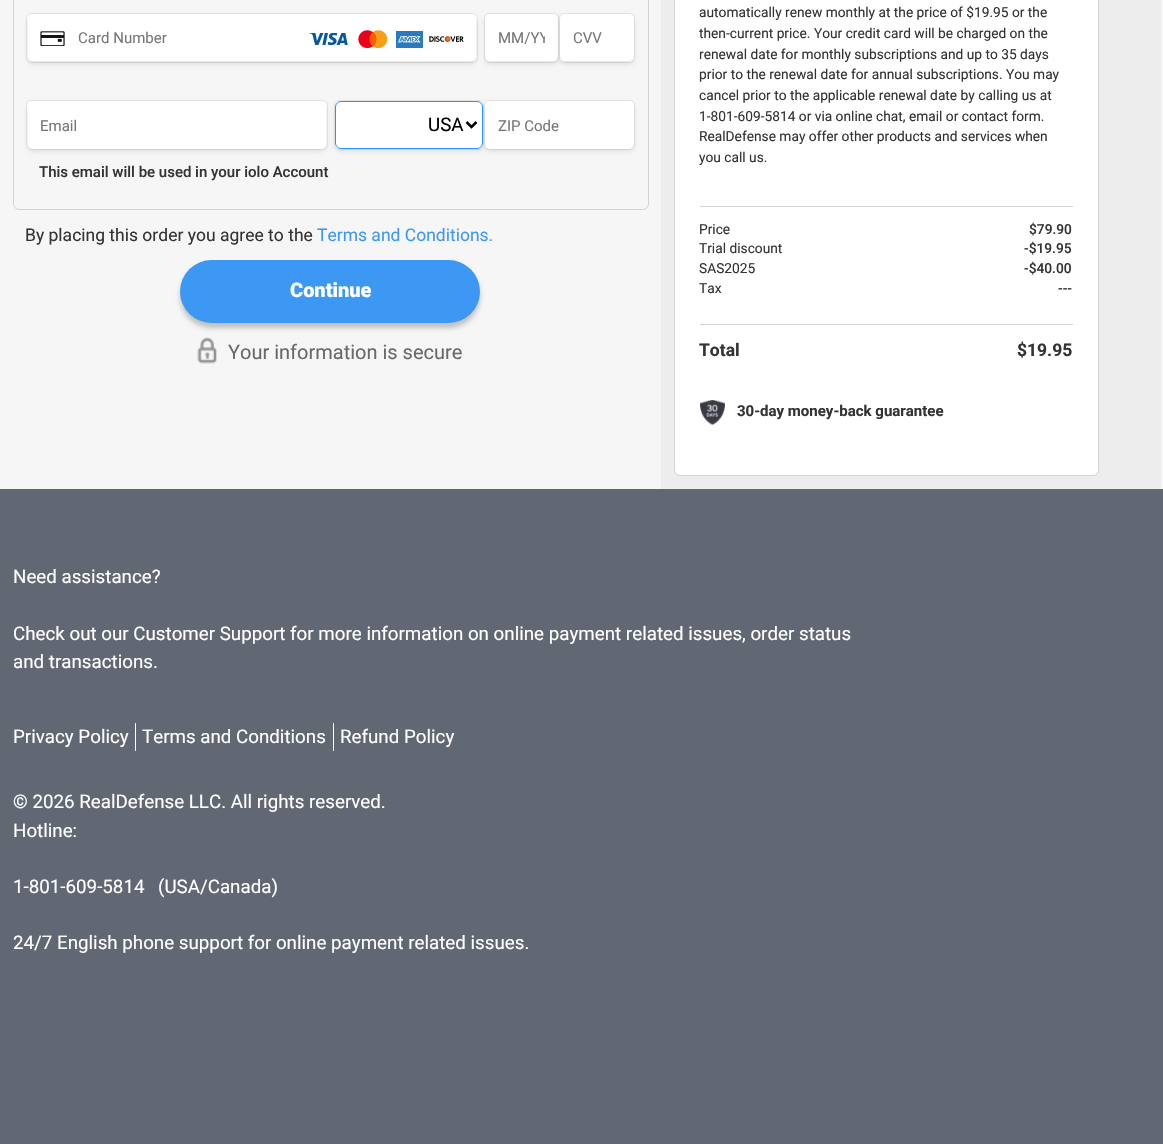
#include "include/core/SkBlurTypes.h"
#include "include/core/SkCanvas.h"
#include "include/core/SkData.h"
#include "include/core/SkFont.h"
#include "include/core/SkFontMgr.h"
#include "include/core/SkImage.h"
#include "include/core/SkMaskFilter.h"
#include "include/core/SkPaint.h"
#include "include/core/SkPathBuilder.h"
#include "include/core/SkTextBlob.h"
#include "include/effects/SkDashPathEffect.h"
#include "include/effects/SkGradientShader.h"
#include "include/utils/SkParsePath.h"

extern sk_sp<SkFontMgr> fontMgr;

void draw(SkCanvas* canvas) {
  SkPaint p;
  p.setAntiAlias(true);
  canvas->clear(SkColorSetRGB(98, 103, 116));
  p.setColor(SkColorSetRGB(246, 246, 246));
  canvas->drawRect(SkRect::MakeLTRB(0, 0, 1163, 489), p);
  p.setStyle(SkPaint::kStroke_Style);
  p.setStrokeWidth(1);
  p.setColor(SkColorSetRGB(211, 211, 211));
  canvas->drawPath(SkPathBuilder().moveTo(13.5f, -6.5f).lineTo(648.5f, -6.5f).lineTo(648.5f, 204).cubicTo(648.5f, 207, 646, 209.5f, 643, 209.5f).lineTo(19, 209.5f).cubicTo(16, 209.5f, 13.5f, 207, 13.5f, 204).close().detach(), p);
  p.setStyle(SkPaint::kFill_Style);
  p.setColor(SK_ColorWHITE);
  canvas->drawRoundRect(SkRect::MakeLTRB(484.5f, 13.5f, 558.5f, 62.5f), 4.5f, 4.5f, p);
  p.setStyle(SkPaint::kStroke_Style);
  p.setColor(SkColorSetRGB(229, 229, 229));
  canvas->drawRoundRect(SkRect::MakeLTRB(484.5f, 13.5f, 558.5f, 62.5f), 4.5f, 4.5f, p);
  canvas->save();
  canvas->clipPath(SkPathBuilder(SkPathFillType::kEvenOdd).moveTo(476, 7).lineTo(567, 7).lineTo(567, 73).lineTo(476, 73).close().moveTo(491, 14).lineTo(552, 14).cubicTo(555.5f, 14, 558, 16.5f, 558, 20).lineTo(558, 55).cubicTo(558, 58.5f, 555.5f, 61, 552, 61).lineTo(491, 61).cubicTo(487.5f, 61, 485, 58.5f, 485, 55).lineTo(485, 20).cubicTo(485, 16.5f, 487.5f, 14, 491, 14).close().detach(), true);
  p.setStyle(SkPaint::kFill_Style);
  p.setColor(SkColorSetARGB(28, 0, 0, 0));
  p.setMaskFilter(SkMaskFilter::MakeBlur(kNormal_SkBlurStyle, 2.5f));
  canvas->drawRoundRect(SkRect::MakeLTRB(485, 16, 558, 64), 6, 6, p);
  p.setMaskFilter(nullptr);
  canvas->restore();
  p.setColor(SK_ColorWHITE);
  canvas->drawRoundRect(SkRect::MakeLTRB(26.5f, 13.5f, 477.5f, 62.5f), 4.5f, 4.5f, p);
  p.setStyle(SkPaint::kStroke_Style);
  p.setColor(SkColorSetRGB(229, 229, 229));
  canvas->drawRoundRect(SkRect::MakeLTRB(26.5f, 13.5f, 477.5f, 62.5f), 4.5f, 4.5f, p);
  canvas->save();
  canvas->clipPath(SkPathBuilder(SkPathFillType::kEvenOdd).moveTo(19, 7).lineTo(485, 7).lineTo(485, 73).lineTo(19, 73).close().moveTo(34, 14).lineTo(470, 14).cubicTo(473.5f, 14, 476, 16.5f, 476, 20).lineTo(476, 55).cubicTo(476, 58.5f, 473.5f, 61, 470, 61).lineTo(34, 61).cubicTo(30.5f, 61, 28, 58.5f, 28, 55).lineTo(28, 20).cubicTo(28, 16.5f, 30.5f, 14, 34, 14).close().detach(), true);
  p.setStyle(SkPaint::kFill_Style);
  p.setColor(SkColorSetARGB(28, 0, 0, 0));
  p.setMaskFilter(SkMaskFilter::MakeBlur(kNormal_SkBlurStyle, 2.5f));
  canvas->drawRoundRect(SkRect::MakeLTRB(28, 16, 476, 64), 6, 6, p);
  p.setMaskFilter(nullptr);
  canvas->restore();
  canvas->drawImageRect(SkImages::DeferredFromEncodedData(SkData::MakeFromFileName("images/1.png")), SkRect::MakeLTRB(40, 31, 65, 46), SkSamplingOptions());
  canvas->drawImageRect(SkImages::DeferredFromEncodedData(SkData::MakeFromFileName("images/2.png")), SkRect::MakeLTRB(309, 33, 348, 46), SkSamplingOptions());
  canvas->drawImageRect(SkImages::DeferredFromEncodedData(SkData::MakeFromFileName("images/3.png")), SkRect::MakeLTRB(358, 30, 388, 49), SkSamplingOptions());
  canvas->drawImageRect(SkImages::DeferredFromEncodedData(SkData::MakeFromFileName("images/4.png")), SkRect::MakeLTRB(396, 31, 423, 48), SkSamplingOptions());
  canvas->drawImageRect(SkImages::DeferredFromEncodedData(SkData::MakeFromFileName("images/5.png")), SkRect::MakeLTRB(429, 36, 464, 42), SkSamplingOptions());
  p.setColor(SK_ColorWHITE);
  canvas->drawRoundRect(SkRect::MakeLTRB(559.5f, 13.5f, 634.5f, 62.5f), 4.5f, 4.5f, p);
  p.setStyle(SkPaint::kStroke_Style);
  p.setColor(SkColorSetRGB(229, 229, 229));
  canvas->drawRoundRect(SkRect::MakeLTRB(559.5f, 13.5f, 634.5f, 62.5f), 4.5f, 4.5f, p);
  canvas->save();
  canvas->clipPath(SkPathBuilder(SkPathFillType::kEvenOdd).moveTo(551, 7).lineTo(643, 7).lineTo(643, 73).lineTo(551, 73).close().moveTo(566, 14).lineTo(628, 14).cubicTo(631.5f, 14, 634, 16.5f, 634, 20).lineTo(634, 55).cubicTo(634, 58.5f, 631.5f, 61, 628, 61).lineTo(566, 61).cubicTo(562.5f, 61, 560, 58.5f, 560, 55).lineTo(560, 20).cubicTo(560, 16.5f, 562.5f, 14, 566, 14).close().detach(), true);
  p.setStyle(SkPaint::kFill_Style);
  p.setColor(SkColorSetARGB(28, 0, 0, 0));
  p.setMaskFilter(SkMaskFilter::MakeBlur(kNormal_SkBlurStyle, 2.5f));
  canvas->drawRoundRect(SkRect::MakeLTRB(560, 16, 634, 64), 6, 6, p);
  p.setMaskFilter(nullptr);
  canvas->restore();
  p.setColor(SK_ColorWHITE);
  canvas->drawRoundRect(SkRect::MakeLTRB(26.5f, 100.5f, 327.5f, 149.5f), 4.5f, 4.5f, p);
  p.setStyle(SkPaint::kStroke_Style);
  p.setColor(SkColorSetRGB(229, 229, 229));
  canvas->drawRoundRect(SkRect::MakeLTRB(26.5f, 100.5f, 327.5f, 149.5f), 4.5f, 4.5f, p);
  canvas->save();
  canvas->clipPath(SkPathBuilder(SkPathFillType::kEvenOdd).moveTo(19, 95).lineTo(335, 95).lineTo(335, 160).lineTo(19, 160).close().moveTo(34, 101).lineTo(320, 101).cubicTo(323.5f, 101, 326, 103.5f, 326, 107).lineTo(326, 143).cubicTo(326, 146.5f, 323.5f, 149, 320, 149).lineTo(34, 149).cubicTo(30.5f, 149, 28, 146.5f, 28, 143).lineTo(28, 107).cubicTo(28, 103.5f, 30.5f, 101, 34, 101).close().detach(), true);
  p.setStyle(SkPaint::kFill_Style);
  p.setColor(SkColorSetARGB(28, 0, 0, 0));
  p.setMaskFilter(SkMaskFilter::MakeBlur(kNormal_SkBlurStyle, 2.5f));
  canvas->drawRoundRect(SkRect::MakeLTRB(28, 104, 326, 151), 6, 6, p);
  p.setMaskFilter(nullptr);
  canvas->restore();
  p.setColor(SK_ColorWHITE);
  canvas->drawRoundRect(SkRect::MakeLTRB(334.5f, 100.5f, 483.5f, 149.5f), 4.5f, 4.5f, p);
  p.setStyle(SkPaint::kStroke_Style);
  p.setColor(SkColorSetRGB(229, 229, 229));
  canvas->drawRoundRect(SkRect::MakeLTRB(334.5f, 100.5f, 483.5f, 149.5f), 4.5f, 4.5f, p);
  canvas->save();
  canvas->clipPath(SkPathBuilder(SkPathFillType::kEvenOdd).moveTo(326, 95).lineTo(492, 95).lineTo(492, 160).lineTo(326, 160).close().moveTo(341, 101).lineTo(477, 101).cubicTo(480.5f, 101, 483, 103.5f, 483, 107).lineTo(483, 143).cubicTo(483, 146.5f, 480.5f, 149, 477, 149).lineTo(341, 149).cubicTo(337.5f, 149, 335, 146.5f, 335, 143).lineTo(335, 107).cubicTo(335, 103.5f, 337.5f, 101, 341, 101).close().detach(), true);
  p.setStyle(SkPaint::kFill_Style);
  p.setColor(SkColorSetARGB(28, 0, 0, 0));
  p.setMaskFilter(SkMaskFilter::MakeBlur(kNormal_SkBlurStyle, 2.5f));
  canvas->drawRoundRect(SkRect::MakeLTRB(335, 104, 483, 151), 6, 6, p);
  p.setMaskFilter(nullptr);
  canvas->restore();
  p.setStyle(SkPaint::kStroke_Style);
  p.setColor(SkColorSetRGB(38, 150, 253));
  canvas->drawRoundRect(SkRect::MakeLTRB(335.5f, 101.5f, 482.5f, 148.5f), 5.5f, 5.5f, p);
  p.setStrokeWidth(2.5f);
  p.setColor(SK_ColorBLACK);
  canvas->drawPath(SkPathBuilder().moveTo(466.5f, 122).lineTo(471.5f, 127).lineTo(476.5f, 122).detach(), p);
  p.setStyle(SkPaint::kFill_Style);
  p.setColor(SK_ColorWHITE);
  canvas->drawRoundRect(SkRect::MakeLTRB(484.5f, 100.5f, 634.5f, 149.5f), 4.5f, 4.5f, p);
  p.setStyle(SkPaint::kStroke_Style);
  p.setStrokeWidth(1);
  p.setColor(SkColorSetRGB(229, 229, 229));
  canvas->drawRoundRect(SkRect::MakeLTRB(484.5f, 100.5f, 634.5f, 149.5f), 4.5f, 4.5f, p);
  canvas->save();
  canvas->clipPath(SkPathBuilder(SkPathFillType::kEvenOdd).moveTo(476, 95).lineTo(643, 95).lineTo(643, 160).lineTo(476, 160).close().moveTo(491, 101).lineTo(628, 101).cubicTo(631.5f, 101, 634, 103.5f, 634, 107).lineTo(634, 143).cubicTo(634, 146.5f, 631.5f, 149, 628, 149).lineTo(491, 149).cubicTo(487.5f, 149, 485, 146.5f, 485, 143).lineTo(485, 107).cubicTo(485, 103.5f, 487.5f, 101, 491, 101).close().detach(), true);
  p.setStyle(SkPaint::kFill_Style);
  p.setColor(SkColorSetARGB(28, 0, 0, 0));
  p.setMaskFilter(SkMaskFilter::MakeBlur(kNormal_SkBlurStyle, 2.5f));
  canvas->drawRoundRect(SkRect::MakeLTRB(485, 104, 634, 151), 6, 6, p);
  p.setMaskFilter(nullptr);
  canvas->restore();
  p.setColor(SkColorSetARGB(56, 0, 0, 0));
  p.setMaskFilter(SkMaskFilter::MakeBlur(kNormal_SkBlurStyle, 2.5f));
  canvas->drawRoundRect(SkRect::MakeLTRB(180, 265, 480, 328), 31.5f, 31.5f, p);
  p.setMaskFilter(nullptr);
  p.setColor(SkColorSetRGB(60, 152, 243));
  canvas->drawRoundRect(SkRect::MakeLTRB(180, 260, 480, 323), 31.5f, 31.5f, p);
  canvas->drawImageRect(SkImages::DeferredFromEncodedData(SkData::MakeFromFileName("images/6.png")), SkRect::MakeLTRB(197, 337, 217, 364), SkSamplingOptions());
  p.setColor(SkColorSetRGB(237, 237, 237));
  canvas->drawRect(SkRect::MakeLTRB(661, 0, 1161, 489), p);
  p.setColor(SK_ColorWHITE);
  canvas->drawRoundRect(SkRect::MakeLTRB(674.5f, -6.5f, 1098.5f, 475.5f), 5.5f, 5.5f, p);
  p.setStyle(SkPaint::kStroke_Style);
  p.setColor(SkColorSetRGB(211, 211, 211));
  canvas->drawRoundRect(SkRect::MakeLTRB(674.5f, -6.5f, 1098.5f, 475.5f), 5.5f, 5.5f, p);
  p.setStyle(SkPaint::kFill_Style);
  canvas->drawRect(SkRect::MakeLTRB(700, 206, 1073, 207), p);
  canvas->drawRect(SkRect::MakeLTRB(700, 324, 1073, 325), p);
  canvas->drawImageRect(SkImages::DeferredFromEncodedData(SkData::MakeFromFileName("images/7.png")), SkRect::MakeLTRB(700, 400, 725, 425), SkSamplingOptions());
  p.setColor(SK_ColorWHITE);
  canvas->drawRect(SkRect::MakeLTRB(135, 723, 136, 751), p);
  canvas->drawRect(SkRect::MakeLTRB(333, 723, 334, 751), p);
  SkFont font1(fontMgr->matchFamilyStyle("Roboto", SkFontStyle::Normal()), 15);
  font1.setSubpixel(true);
  p.setColor(SkColorSetRGB(119, 119, 119));
  canvas->drawString("Card Number", 78, 43, font1, p);
  canvas->save();
  canvas->clipRect(SkRect::MakeLTRB(498, 30, 545, 48));
  canvas->drawString("MM/YY", 498, 43, font1, p);
  canvas->restore();
  canvas->drawString("CVV", 573, 43, font1, p);
  canvas->drawString("Email", 40, 131, font1, p);
  SkFont font2(fontMgr->matchFamilyStyle("Roboto", SkFontStyle::Normal()), 18.75f);
  font2.setSubpixel(true);
  p.setColor(SK_ColorBLACK);
  canvas->drawString("USA", 428, 131, font2, p);
  p.setColor(SkColorSetRGB(119, 119, 119));
  canvas->drawString("ZIP Code", 498, 131, font1, p);
  SkFont font3(fontMgr->matchFamilyStyle("Roboto", SkFontStyle(500, SkFontStyle::kNormal_Width, SkFontStyle::kUpright_Slant)), 15);
  font3.setSubpixel(true);
  p.setColor(SkColorSetRGB(51, 51, 51));
  canvas->drawString("This email will be used in your iolo Account", 39, 177, font3, p);
  SkFont font4(fontMgr->matchFamilyStyle("Roboto", SkFontStyle::Normal()), 17.5f);
  font4.setSubpixel(true);
  canvas->drawString("By placing this order you agree to the", 25, 241, font4, p);
  p.setColor(SkColorSetRGB(60, 152, 243));
  canvas->drawString("Terms and Conditions.", 317, 241, font4, p);
  SkFont font5(fontMgr->matchFamilyStyle("Roboto", SkFontStyle(900, SkFontStyle::kNormal_Width, SkFontStyle::kUpright_Slant)), 20);
  font5.setSubpixel(true);
  p.setColor(SK_ColorWHITE);
  canvas->drawString("Continue", 290, 297, font5, p);
  SkFont font6(fontMgr->matchFamilyStyle("Roboto", SkFontStyle::Normal()), 20);
  font6.setSubpixel(true);
  p.setColor(SkColorSetRGB(105, 105, 105));
  canvas->drawString("Your information is secure", 228, 359, font6, p);
  SkFont font7(fontMgr->matchFamilyStyle("Roboto", SkFontStyle::Normal()), 13.75f);
  font7.setSubpixel(true);
  p.setColor(SkColorSetRGB(51, 51, 51));
  canvas->drawString("automatically renew monthly at the price of $19.95 or the", 699, 17, font7, p);
  canvas->drawString("then-current price. Your credit card will be charged on the", 699, 38, font7, p);
  canvas->drawString("renewal date for monthly subscriptions and up to 35 days", 699, 59, font7, p);
  canvas->drawString("prior to the renewal date for annual subscriptions. You may", 699, 79, font7, p);
  canvas->drawString("cancel prior to the applicable renewal date by calling us at", 699, 100, font7, p);
  canvas->drawString("1-801-609-5814 or via online chat, email or contact form.", 699, 121, font7, p);
  canvas->drawString("RealDefense may offer other products and services when", 699, 141, font7, p);
  canvas->drawString("you call us.", 699, 162, font7, p);
  canvas->drawString("Price", 699, 234, font7, p);
  SkFont font8(fontMgr->matchFamilyStyle("Roboto", SkFontStyle(500, SkFontStyle::kNormal_Width, SkFontStyle::kUpright_Slant)), 13.75f);
  font8.setSubpixel(true);
  canvas->drawString("$79.90", 1029, 234, font8, p);
  canvas->drawString("Trial discount", 699, 253, font7, p);
  canvas->drawString("-$19.95", 1024, 253, font8, p);
  canvas->drawString("SAS2025", 699, 273, font7, p);
  canvas->drawString("-$40.00", 1024, 273, font8, p);
  canvas->drawString("Tax", 699, 293, font7, p);
  canvas->drawString("---", 1058, 293, font8, p);
  SkFont font9(fontMgr->matchFamilyStyle("Roboto", SkFontStyle::Bold()), 17.5f);
  font9.setSubpixel(true);
  canvas->drawString("Total", 699, 356, font9, p);
  canvas->drawString("$19.95", 1017, 356, font9, p);
  SkFont font10(fontMgr->matchFamilyStyle("Roboto", SkFontStyle::Bold()), 15);
  font10.setSubpixel(true);
  canvas->drawString("30-day money-back guarantee", 737, 416, font10, p);
  p.setColor(SK_ColorWHITE);
  canvas->drawString("Need assistance?", 13, 583, font2, p);
  canvas->drawString("Check out our Customer Support for more information on online payment related issues, order status", 13, 640, font2, p);
  canvas->drawString("and transactions.", 13, 668, font2, p);
  canvas->drawString("Privacy Policy", 13, 743, font2, p);
  canvas->drawString("Terms and Conditions", 142, 743, font2, p);
  canvas->drawString("Refund Policy", 340, 743, font2, p);
  canvas->drawString("© 2026 RealDefense LLC. All rights reserved.", 13, 808, font2, p);
  canvas->drawString("Hotline:", 13, 837, font2, p);
  canvas->drawString("1-801-609-5814", 13, 893, font2, p);
  canvas->drawString("(USA/Canada)", 158, 893, font2, p);
  canvas->drawString("24/7 English phone support for online payment related issues.", 13, 949, font2, p);
}
